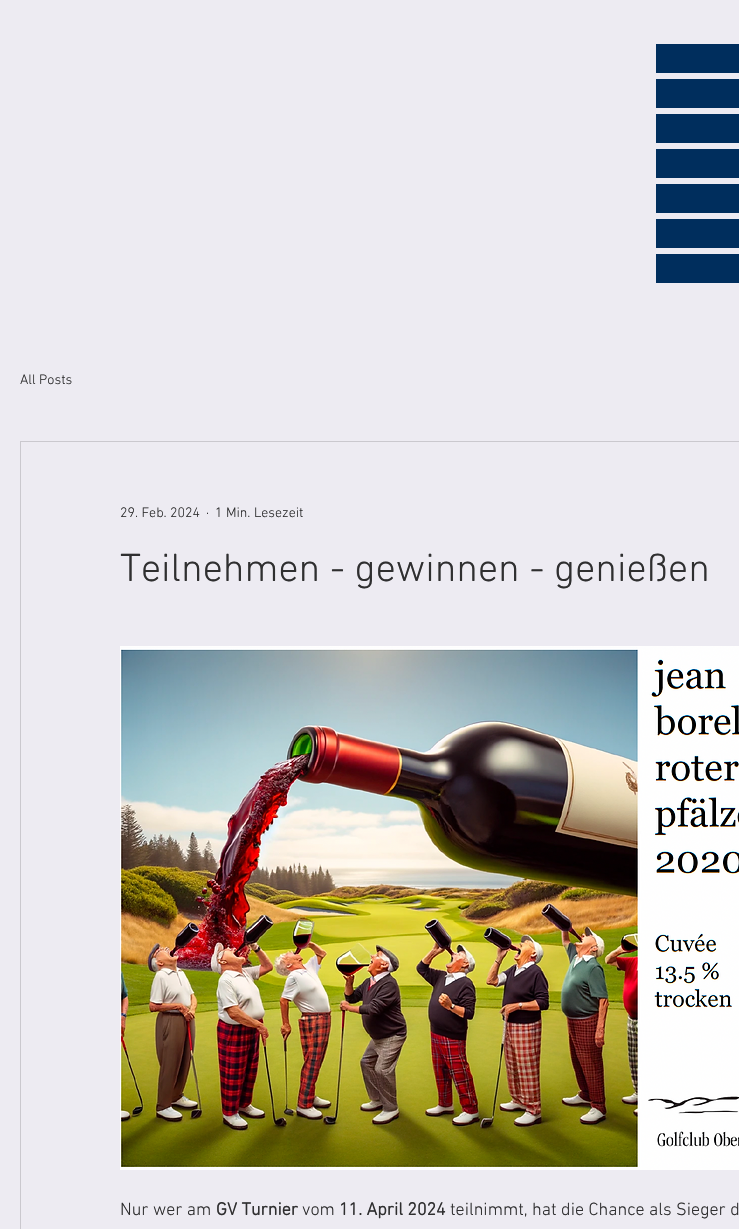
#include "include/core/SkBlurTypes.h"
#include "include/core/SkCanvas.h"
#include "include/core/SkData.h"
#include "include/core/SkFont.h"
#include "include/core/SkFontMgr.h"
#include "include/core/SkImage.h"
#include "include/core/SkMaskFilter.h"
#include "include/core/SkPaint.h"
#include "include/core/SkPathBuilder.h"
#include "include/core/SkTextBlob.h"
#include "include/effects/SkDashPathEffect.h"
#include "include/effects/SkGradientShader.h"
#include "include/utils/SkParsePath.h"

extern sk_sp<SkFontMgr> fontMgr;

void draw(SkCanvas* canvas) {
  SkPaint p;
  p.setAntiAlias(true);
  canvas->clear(SkColorSetRGB(237, 235, 242));
  p.setColor(SkColorSetRGB(0, 46, 93));
  canvas->drawRect(SkRect::MakeLTRB(656, 44, 739, 73), p);
  canvas->drawRect(SkRect::MakeLTRB(656, 79, 739, 108), p);
  canvas->drawRect(SkRect::MakeLTRB(656, 114, 739, 143), p);
  canvas->drawRect(SkRect::MakeLTRB(656, 149, 739, 178), p);
  canvas->drawRect(SkRect::MakeLTRB(656, 184, 739, 213), p);
  canvas->drawRect(SkRect::MakeLTRB(656, 219, 739, 248), p);
  canvas->drawRect(SkRect::MakeLTRB(656, 254, 739, 283), p);
  p.setStyle(SkPaint::kStroke_Style);
  p.setStrokeWidth(1);
  p.setColor(SkColorSetRGB(202, 200, 206));
  canvas->drawRect(SkRect::MakeLTRB(20.5f, 441.5f, 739.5f, 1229.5f), p);
  canvas->drawImageRect(SkImages::DeferredFromEncodedData(SkData::MakeFromFileName("images/1.png")), SkRect::MakeLTRB(120, 646, 739, 1170), SkSamplingOptions());
  SkFont font1(fontMgr->matchFamilyStyle("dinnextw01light", SkFontStyle(300, SkFontStyle::kNormal_Width, SkFontStyle::kUpright_Slant)), 14);
  font1.setSubpixel(true);
  p.setStyle(SkPaint::kFill_Style);
  p.setColor(SkColorSetRGB(47, 47, 48));
  canvas->drawString("All Posts", 20, 384, font1, p);
  canvas->drawString("29. Feb. 2024", 120, 517, font1, p);
  canvas->drawString("·", 206, 517, font1, p);
  canvas->drawString("1 Min. Lesezeit", 215, 517, font1, p);
  SkFont font2(fontMgr->matchFamilyStyle("dinnextw01light", SkFontStyle(300, SkFontStyle::kNormal_Width, SkFontStyle::kUpright_Slant)), 40);
  font2.setSubpixel(true);
  canvas->drawString("Teilnehmen - gewinnen - genießen", 120, 581, font2, p);
  SkFont font3(fontMgr->matchFamilyStyle("dinnextw01light", SkFontStyle(300, SkFontStyle::kNormal_Width, SkFontStyle::kUpright_Slant)), 18);
  font3.setSubpixel(true);
  canvas->drawString("Nur wer am", 120, 1215, font3, p);
  SkFont font4(fontMgr->matchFamilyStyle("dinnextw01light", SkFontStyle::Bold()), 18);
  font4.setSubpixel(true);
  canvas->drawString("GV Turnier", 216, 1215, font4, p);
  canvas->drawString("vom", 302, 1215, font3, p);
  canvas->drawString("11. April 2024", 339, 1215, font4, p);
  canvas->drawString("teilnimmt, hat die Chance als Sieger d", 450, 1215, font3, p);
}
